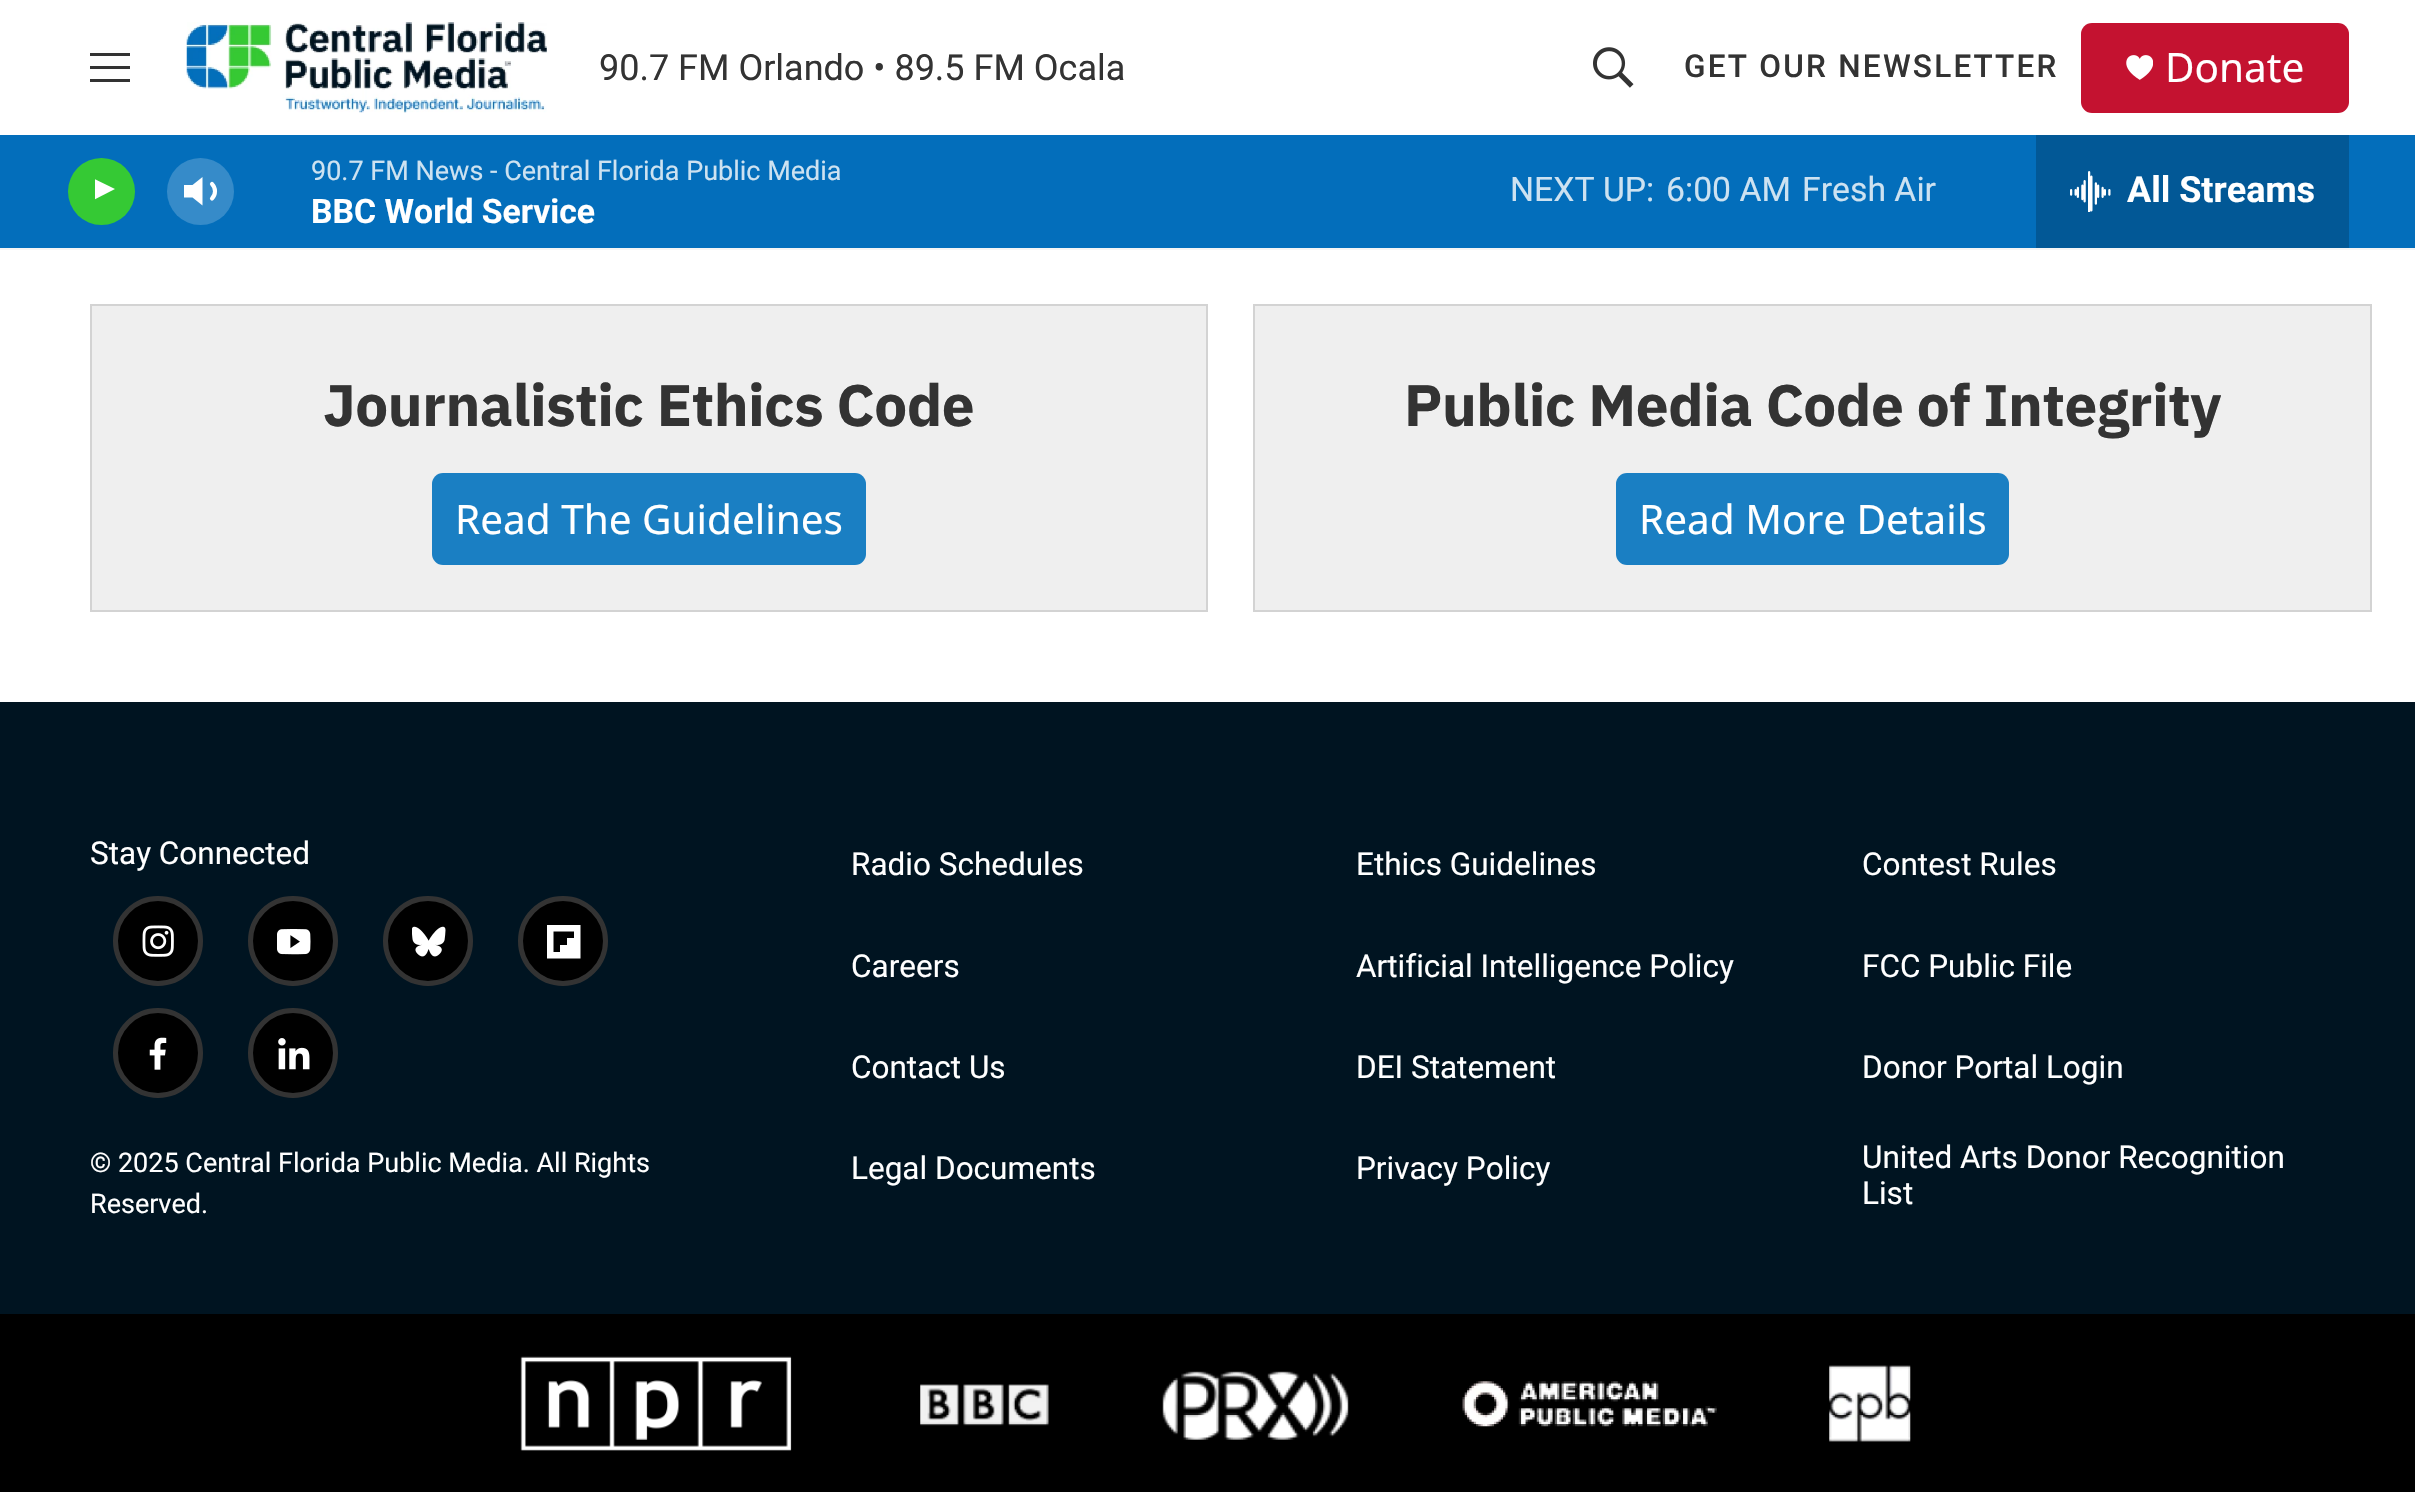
#include "include/core/SkBlurTypes.h"
#include "include/core/SkCanvas.h"
#include "include/core/SkData.h"
#include "include/core/SkFont.h"
#include "include/core/SkFontMgr.h"
#include "include/core/SkImage.h"
#include "include/core/SkMaskFilter.h"
#include "include/core/SkPaint.h"
#include "include/core/SkPathBuilder.h"
#include "include/core/SkTextBlob.h"
#include "include/effects/SkDashPathEffect.h"
#include "include/effects/SkGradientShader.h"
#include "include/utils/SkParsePath.h"

extern sk_sp<SkFontMgr> fontMgr;

void draw(SkCanvas* canvas) {
  SkPaint p;
  p.setAntiAlias(true);
  auto spacedText = [&](const char* s, float x, float y, const SkFont& font, const SkPaint& ink, float letter, float word) {
    std::vector<SkGlyphID> glyphs(font.countText(s, strlen(s), SkTextEncoding::kUTF8));
    std::vector<float> xs(glyphs.size());
    font.textToGlyphs(s, strlen(s), SkTextEncoding::kUTF8, glyphs);
    font.getXPos(glyphs, xs, x);
    float extra = 0;
    for (size_t i = 0; i < glyphs.size(); i++) {
      xs[i] += extra;
      extra += letter + word * (glyphs[i] == font.unicharToGlyph(' '));
    }
    canvas->drawTextBlob(SkTextBlob::MakeFromPosHGlyphs(glyphs, xs, y, font), 0, 0, ink);
  };
  canvas->clear(SK_ColorWHITE);
  p.setColor(SkColorSetRGB(245, 245, 245));
  canvas->drawRect(SkRect::MakeLTRB(0, 248, 2415, 250), p);
  p.setColor(SkColorSetRGB(51, 51, 51));
  canvas->drawPath(SkPathBuilder(SkPathFillType::kEvenOdd).moveTo(90, 69).lineTo(90, 66).lineTo(130, 66).lineTo(130, 69).close().moveTo(90, 56).lineTo(90, 53).lineTo(130, 53).lineTo(130, 56).close().moveTo(90, 82).lineTo(90, 79).lineTo(130, 79).lineTo(130, 82).close().detach(), p);
  canvas->drawImageRect(SkImages::DeferredFromEncodedData(SkData::MakeFromFileName("images/1.png")), SkRect::MakeLTRB(186, 22, 547, 113), SkSamplingOptions());
  canvas->drawImageRect(SkImages::DeferredFromEncodedData(SkData::MakeFromFileName("images/2.png")), SkRect::MakeLTRB(1593, 47, 1634, 88), SkSamplingOptions());
  p.setColor(SkColorSetRGB(196, 18, 48));
  canvas->drawRoundRect(SkRect::MakeLTRB(2081, 23, 2349, 113), 11, 11, p);
  canvas->drawImageRect(SkImages::DeferredFromEncodedData(SkData::MakeFromFileName("images/3.png")), SkRect::MakeLTRB(2126, 55, 2153, 80), SkSamplingOptions());
  p.setColor(SkColorSetRGB(3, 110, 187));
  canvas->drawRect(SkRect::MakeLTRB(0, 135, 2415, 248), p);
  p.setColor(SkColorSetRGB(53, 201, 52));
  canvas->drawCircle(101.5f, 191.5f, 33.5f, p);
  canvas->save();
  canvas->clipRect(SkRect::MakeLTRB(95, 176, 120, 209));
  p.setColor(SK_ColorWHITE);
  canvas->drawPath(SkPathBuilder().moveTo(93.5f, 178.5f).lineTo(115, 189).lineTo(93.5f, 200).close().detach(), p);
  canvas->restore();
  canvas->drawPath(SkPathBuilder().moveTo(202.5f, 177).lineTo(192.5f, 185).lineTo(184, 185).lineTo(184, 197.5f).lineTo(192.5f, 197.5f).lineTo(202.5f, 205.5f).close().detach(), p);
  p.setStyle(SkPaint::kStroke_Style);
  p.setStrokeWidth(4.1f);
  p.setStrokeCap(SkPaint::kRound_Cap);
  p.setStrokeJoin(SkPaint::kRound_Join);
  canvas->drawPath(SkPathBuilder().moveTo(212, 184).cubicTo(216, 188, 216, 194.5f, 212, 198.5f).detach(), p);
  p.setStyle(SkPaint::kFill_Style);
  p.setColor(SkColorSetARGB(51, 255, 255, 255));
  canvas->drawCircle(200.5f, 191.5f, 33.5f, p);
  p.setColor(SkColorSetRGB(2, 88, 150));
  canvas->drawRect(SkRect::MakeLTRB(2036, 135, 2349, 248), p);
  canvas->drawImageRect(SkImages::DeferredFromEncodedData(SkData::MakeFromFileName("images/4.png")), SkRect::MakeLTRB(2070, 171, 2111, 212), SkSamplingOptions());
  p.setColor(SkColorSetRGB(239, 239, 239));
  canvas->drawRect(SkRect::MakeLTRB(91, 305, 1207, 611), p);
  p.setStyle(SkPaint::kStroke_Style);
  p.setStrokeWidth(2);
  p.setStrokeCap(SkPaint::kButt_Cap);
  p.setStrokeJoin(SkPaint::kMiter_Join);
  p.setColor(SkColorSetRGB(211, 211, 211));
  canvas->drawRect(SkRect::MakeLTRB(91, 305, 1207, 611), p);
  p.setStyle(SkPaint::kFill_Style);
  p.setColor(SkColorSetRGB(26, 127, 195));
  canvas->drawRoundRect(SkRect::MakeLTRB(432, 473, 866, 565), 11, 11, p);
  p.setColor(SkColorSetRGB(239, 239, 239));
  canvas->drawRect(SkRect::MakeLTRB(1254, 305, 2371, 611), p);
  p.setStyle(SkPaint::kStroke_Style);
  p.setColor(SkColorSetRGB(211, 211, 211));
  canvas->drawRect(SkRect::MakeLTRB(1254, 305, 2371, 611), p);
  p.setStyle(SkPaint::kFill_Style);
  p.setColor(SkColorSetRGB(26, 127, 195));
  canvas->drawRoundRect(SkRect::MakeLTRB(1616, 473, 2009, 565), 11, 11, p);
  p.setColor(SkColorSetRGB(0, 20, 33));
  canvas->drawRect(SkRect::MakeLTRB(0, 702, 2415, 1314), p);
  p.setColor(SK_ColorBLACK);
  canvas->drawCircle(158, 941, 42.5f, p);
  p.setStyle(SkPaint::kStroke_Style);
  p.setStrokeWidth(5);
  p.setColor(SkColorSetRGB(51, 51, 51));
  canvas->drawCircle(158, 941, 42.5f, p);
  canvas->drawImageRect(SkImages::DeferredFromEncodedData(SkData::MakeFromFileName("images/5.png")), SkRect::MakeLTRB(142, 925, 174, 957), SkSamplingOptions());
  p.setStyle(SkPaint::kFill_Style);
  p.setColor(SK_ColorBLACK);
  canvas->drawCircle(293, 941, 42.5f, p);
  p.setStyle(SkPaint::kStroke_Style);
  p.setColor(SkColorSetRGB(51, 51, 51));
  canvas->drawCircle(293, 941, 42.5f, p);
  canvas->drawImageRect(SkImages::DeferredFromEncodedData(SkData::MakeFromFileName("images/6.png")), SkRect::MakeLTRB(277, 929, 311, 955), SkSamplingOptions());
  p.setStyle(SkPaint::kFill_Style);
  p.setColor(SK_ColorBLACK);
  canvas->drawCircle(428, 941, 42.5f, p);
  p.setStyle(SkPaint::kStroke_Style);
  p.setColor(SkColorSetRGB(51, 51, 51));
  canvas->drawCircle(428, 941, 42.5f, p);
  canvas->drawImageRect(SkImages::DeferredFromEncodedData(SkData::MakeFromFileName("images/7.png")), SkRect::MakeLTRB(412, 926, 446, 957), SkSamplingOptions());
  p.setStyle(SkPaint::kFill_Style);
  p.setColor(SK_ColorBLACK);
  canvas->drawCircle(563, 941, 42.5f, p);
  p.setStyle(SkPaint::kStroke_Style);
  p.setColor(SkColorSetRGB(51, 51, 51));
  canvas->drawCircle(563, 941, 42.5f, p);
  p.setStyle(SkPaint::kFill_Style);
  p.setColor(SK_ColorWHITE);
  canvas->drawPath(SkPathBuilder().moveTo(547, 925).lineTo(547, 958.5f).lineTo(580.5f, 958.5f).lineTo(580.5f, 925).close().moveTo(574, 938).lineTo(567, 938).lineTo(567, 945).lineTo(560, 945).lineTo(560, 952).lineTo(553.5f, 952).lineTo(553.5f, 931.5f).lineTo(574, 931.5f).close().detach(), p);
  p.setColor(SK_ColorBLACK);
  canvas->drawCircle(158, 1053, 42.5f, p);
  p.setStyle(SkPaint::kStroke_Style);
  p.setColor(SkColorSetRGB(51, 51, 51));
  canvas->drawCircle(158, 1053, 42.5f, p);
  canvas->drawImageRect(SkImages::DeferredFromEncodedData(SkData::MakeFromFileName("images/8.png")), SkRect::MakeLTRB(149, 1037, 167, 1070), SkSamplingOptions());
  p.setStyle(SkPaint::kFill_Style);
  p.setColor(SK_ColorBLACK);
  canvas->drawCircle(293, 1053, 42.5f, p);
  p.setStyle(SkPaint::kStroke_Style);
  p.setColor(SkColorSetRGB(51, 51, 51));
  canvas->drawCircle(293, 1053, 42.5f, p);
  canvas->drawImageRect(SkImages::DeferredFromEncodedData(SkData::MakeFromFileName("images/9.png")), SkRect::MakeLTRB(278, 1038, 310, 1070), SkSamplingOptions());
  p.setStyle(SkPaint::kFill_Style);
  p.setColor(SK_ColorBLACK);
  canvas->drawRect(SkRect::MakeLTRB(0, 1314, 2415, 1492), p);
  canvas->drawImageRect(SkImages::DeferredFromEncodedData(SkData::MakeFromFileName("images/10.png")), SkRect::MakeLTRB(520, 1356, 792, 1451), SkSamplingOptions());
  canvas->drawImageRect(SkImages::DeferredFromEncodedData(SkData::MakeFromFileName("images/11.png")), SkRect::MakeLTRB(920, 1384, 1049, 1426), SkSamplingOptions());
  canvas->drawImageRect(SkImages::DeferredFromEncodedData(SkData::MakeFromFileName("images/12.png")), SkRect::MakeLTRB(1162, 1371, 1349, 1440), SkSamplingOptions());
  canvas->drawImageRect(SkImages::DeferredFromEncodedData(SkData::MakeFromFileName("images/13.png")), SkRect::MakeLTRB(1462, 1381, 1717, 1427), SkSamplingOptions());
  canvas->drawImageRect(SkImages::DeferredFromEncodedData(SkData::MakeFromFileName("images/14.png")), SkRect::MakeLTRB(1829, 1365, 1911, 1442), SkSamplingOptions());
  SkFont font1(fontMgr->matchFamilyStyle("Roboto", SkFontStyle::Normal()), 36);
  font1.setSubpixel(true);
  p.setColor(SkColorSetRGB(51, 51, 51));
  canvas->drawString("90.7 FM Orlando • 89.5 FM Ocala", 599, 80, font1, p);
  SkFont font2(fontMgr->matchFamilyStyle("Roboto", SkFontStyle(500, SkFontStyle::kNormal_Width, SkFontStyle::kUpright_Slant)), 31.5f);
  font2.setSubpixel(true);
  spacedText("GET OUR NEWSLETTER", 1684, 77, font2, p, 2.25f, 0);
  SkFont font3(fontMgr->matchFamilyStyle("Noto Sans", SkFontStyle::Normal()), 40.5f);
  font3.setSubpixel(true);
  p.setColor(SK_ColorWHITE);
  canvas->drawString("Donate", 2165, 82, font3, p);
  SkFont font4(fontMgr->matchFamilyStyle("Roboto", SkFontStyle::Normal()), 27);
  font4.setSubpixel(true);
  p.setColor(SkColorSetRGB(205, 226, 241));
  canvas->drawString("90.7 FM News - Central Florida Public Media", 311, 180, font4, p);
  SkFont font5(fontMgr->matchFamilyStyle("Roboto", SkFontStyle::Bold()), 33.75f);
  font5.setSubpixel(true);
  p.setColor(SK_ColorWHITE);
  canvas->drawString("BBC World Service", 311, 223, font5, p);
  SkFont font6(fontMgr->matchFamilyStyle("Roboto", SkFontStyle::Normal()), 33.75f);
  font6.setSubpixel(true);
  p.setColor(SkColorSetRGB(205, 226, 241));
  canvas->drawString("NEXT UP:", 1510, 201, font6, p);
  canvas->drawString("6:00 AM", 1666, 201, font6, p);
  canvas->drawString("Fresh Air", 1802, 201, font6, p);
  SkFont font7(fontMgr->matchFamilyStyle("Roboto", SkFontStyle::Bold()), 36);
  font7.setSubpixel(true);
  p.setColor(SK_ColorWHITE);
  canvas->drawString("All Streams", 2127, 202, font7, p);
  SkFont font8(fontMgr->matchFamilyStyle("IBM Plex Sans", SkFontStyle::Bold()), 58.5f);
  font8.setSubpixel(true);
  p.setColor(SkColorSetRGB(51, 51, 51));
  spacedText("Journalistic Ethics Code", 323, 426, font8, p, -0.45f, 0);
  p.setColor(SK_ColorWHITE);
  canvas->drawString("Read The Guidelines", 455, 534, font3, p);
  p.setColor(SkColorSetRGB(51, 51, 51));
  spacedText("Public Media Code of Integrity", 1404, 426, font8, p, -0.45f, 0);
  p.setColor(SK_ColorWHITE);
  canvas->drawString("Read More Details", 1639, 534, font3, p);
  SkFont font9(fontMgr->matchFamilyStyle("Roboto", SkFontStyle::Normal()), 31.5f);
  font9.setSubpixel(true);
  canvas->drawString("Stay Connected", 90, 864, font9, p);
  canvas->drawString("© 2025 Central Florida Public Media. All Rights", 90, 1172, font4, p);
  canvas->drawString("Reserved.", 90, 1213, font4, p);
  canvas->drawString("Radio Schedules", 851, 875, font9, p);
  canvas->drawString("Ethics Guidelines", 1356, 875, font9, p);
  canvas->drawString("Contest Rules", 1862, 875, font9, p);
  canvas->drawString("Careers", 851, 977, font9, p);
  canvas->drawString("Artificial Intelligence Policy", 1356, 977, font9, p);
  canvas->drawString("FCC Public File", 1862, 977, font9, p);
  canvas->drawString("Contact Us", 851, 1078, font9, p);
  canvas->drawString("DEI Statement", 1356, 1078, font9, p);
  canvas->drawString("Donor Portal Login", 1862, 1078, font9, p);
  canvas->drawString("Legal Documents", 851, 1179, font9, p);
  canvas->drawString("Privacy Policy", 1356, 1179, font9, p);
  canvas->drawString("United Arts Donor Recognition", 1862, 1168, font9, p);
  canvas->drawString("List", 1862, 1204, font9, p);
}
